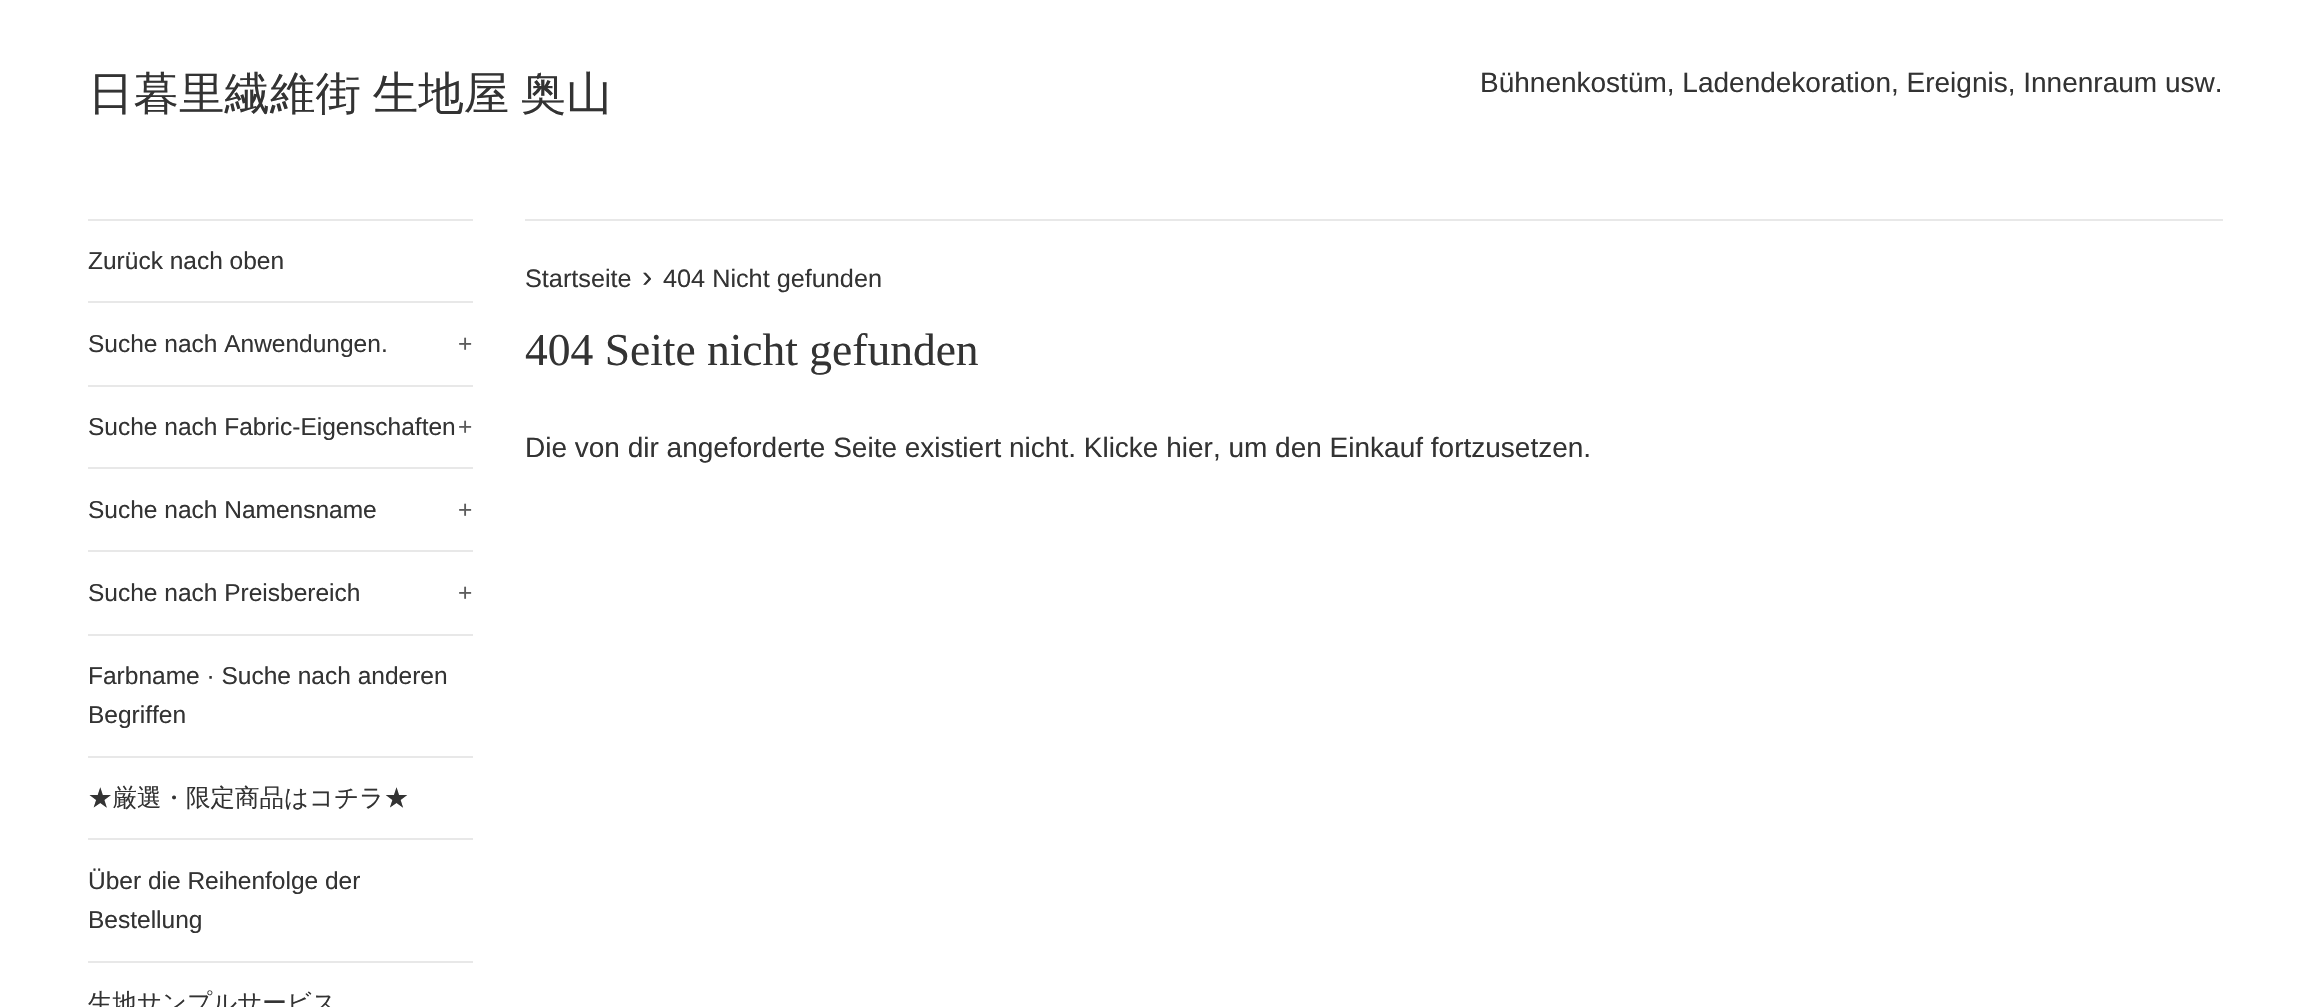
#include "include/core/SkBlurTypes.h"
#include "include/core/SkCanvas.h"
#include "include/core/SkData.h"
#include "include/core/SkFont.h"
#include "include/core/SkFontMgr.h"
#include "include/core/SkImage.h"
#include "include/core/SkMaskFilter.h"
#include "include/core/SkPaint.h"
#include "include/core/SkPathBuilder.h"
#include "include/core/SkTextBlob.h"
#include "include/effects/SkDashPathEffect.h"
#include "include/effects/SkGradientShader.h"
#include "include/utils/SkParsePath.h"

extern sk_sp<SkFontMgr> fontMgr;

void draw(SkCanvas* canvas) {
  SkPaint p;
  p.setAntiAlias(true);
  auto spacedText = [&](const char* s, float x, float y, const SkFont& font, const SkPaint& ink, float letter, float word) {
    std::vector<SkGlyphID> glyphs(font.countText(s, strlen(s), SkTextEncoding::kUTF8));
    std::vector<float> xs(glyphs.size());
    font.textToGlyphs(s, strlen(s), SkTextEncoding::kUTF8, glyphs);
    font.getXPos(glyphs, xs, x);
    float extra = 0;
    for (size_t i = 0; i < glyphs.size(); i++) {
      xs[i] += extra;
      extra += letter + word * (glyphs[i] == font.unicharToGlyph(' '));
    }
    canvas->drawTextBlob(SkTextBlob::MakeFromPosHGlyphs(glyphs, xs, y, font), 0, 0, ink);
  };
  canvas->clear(SK_ColorWHITE);
  p.setColor(SkColorSetRGB(232, 232, 232));
  canvas->drawRect(SkRect::MakeLTRB(88, 219, 473, 221), p);
  canvas->drawRect(SkRect::MakeLTRB(88, 301, 473, 303), p);
  canvas->drawRect(SkRect::MakeLTRB(88, 385, 473, 387), p);
  canvas->drawRect(SkRect::MakeLTRB(88, 467, 473, 469), p);
  canvas->drawRect(SkRect::MakeLTRB(88, 550, 473, 552), p);
  canvas->drawRect(SkRect::MakeLTRB(88, 634, 473, 636), p);
  canvas->drawRect(SkRect::MakeLTRB(88, 756, 473, 758), p);
  canvas->drawRect(SkRect::MakeLTRB(88, 838, 473, 840), p);
  canvas->drawRect(SkRect::MakeLTRB(88, 961, 473, 963), p);
  canvas->drawRect(SkRect::MakeLTRB(525, 219, 2223, 221), p);
  SkFont font1(fontMgr->matchFamilyStyle("WenQuanYi Zen Hei", SkFontStyle(500, SkFontStyle::kNormal_Width, SkFontStyle::kUpright_Slant)), 45.5f);
  font1.setSubpixel(true);
  p.setColor(SkColorSetRGB(51, 51, 51));
  spacedText("日暮里繊維街 生地屋 奥山", 88, 109, font1, p, 0, -2);
  SkFont font2(fontMgr->matchFamilyStyle("Liberation Sans", SkFontStyle::Normal()), 28);
  font2.setSubpixel(true);
  canvas->drawString("Bühnenkostüm, Ladendekoration, Ereignis, Innenraum usw.", 1480, 92, font2, p);
  SkFont font3(fontMgr->matchFamilyStyle("Liberation Sans", SkFontStyle::Normal()), 24.5f);
  font3.setSubpixel(true);
  canvas->drawString("Zurück nach oben", 88, 269, font3, p);
  canvas->drawString("Suche nach Anwendungen.", 88, 352, font3, p);
  p.setColor(SkColorSetRGB(92, 92, 92));
  canvas->drawString("+", 458, 352, font3, p);
  p.setColor(SkColorSetRGB(51, 51, 51));
  canvas->drawString("Suche nach Fabric-Eigenschaften", 88, 435, font3, p);
  p.setColor(SkColorSetRGB(92, 92, 92));
  canvas->drawString("+", 458, 435, font3, p);
  p.setColor(SkColorSetRGB(51, 51, 51));
  canvas->drawString("Suche nach Namensname", 88, 518, font3, p);
  p.setColor(SkColorSetRGB(92, 92, 92));
  canvas->drawString("+", 458, 518, font3, p);
  p.setColor(SkColorSetRGB(51, 51, 51));
  canvas->drawString("Suche nach Preisbereich", 88, 601, font3, p);
  p.setColor(SkColorSetRGB(92, 92, 92));
  canvas->drawString("+", 458, 601, font3, p);
  p.setColor(SkColorSetRGB(51, 51, 51));
  canvas->drawString("Farbname · Suche nach anderen", 88, 684, font3, p);
  canvas->drawString("Begriffen", 88, 723, font3, p);
  SkFont font4(fontMgr->matchFamilyStyle("WenQuanYi Zen Hei", SkFontStyle(500, SkFontStyle::kNormal_Width, SkFontStyle::kUpright_Slant)), 24.5f);
  font4.setSubpixel(true);
  canvas->drawString("★厳選・限定商品はコチラ★", 88, 806, font4, p);
  canvas->drawString("Über die Reihenfolge der", 88, 889, font3, p);
  canvas->drawString("Bestellung", 88, 928, font3, p);
  canvas->drawString("生地サンプルサービス", 88, 1011, font4, p);
  SkFont font5(fontMgr->matchFamilyStyle("Liberation Sans", SkFontStyle::Normal()), 25.25f);
  font5.setSubpixel(true);
  canvas->drawString("Startseite", 525, 287, font5, p);
  SkFont font6(fontMgr->matchFamilyStyle("Liberation Sans", SkFontStyle::Normal()), 31);
  font6.setSubpixel(true);
  canvas->drawString("›", 642, 287, font6, p);
  canvas->drawString("404 Nicht gefunden", 663, 287, font5, p);
  SkFont font7(fontMgr->matchFamilyStyle("Liberation Serif", SkFontStyle::Normal()), 45.5f);
  font7.setSubpixel(true);
  canvas->drawString("404 Seite nicht gefunden", 525, 365, font7, p);
  canvas->drawString("Die von dir angeforderte Seite existiert nicht. Klicke hier, um den Einkauf fortzusetzen.", 525, 457, font2, p);
}
